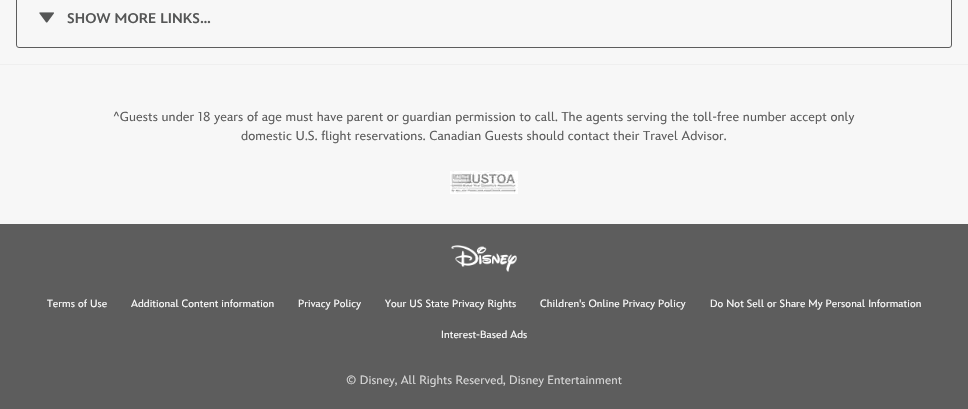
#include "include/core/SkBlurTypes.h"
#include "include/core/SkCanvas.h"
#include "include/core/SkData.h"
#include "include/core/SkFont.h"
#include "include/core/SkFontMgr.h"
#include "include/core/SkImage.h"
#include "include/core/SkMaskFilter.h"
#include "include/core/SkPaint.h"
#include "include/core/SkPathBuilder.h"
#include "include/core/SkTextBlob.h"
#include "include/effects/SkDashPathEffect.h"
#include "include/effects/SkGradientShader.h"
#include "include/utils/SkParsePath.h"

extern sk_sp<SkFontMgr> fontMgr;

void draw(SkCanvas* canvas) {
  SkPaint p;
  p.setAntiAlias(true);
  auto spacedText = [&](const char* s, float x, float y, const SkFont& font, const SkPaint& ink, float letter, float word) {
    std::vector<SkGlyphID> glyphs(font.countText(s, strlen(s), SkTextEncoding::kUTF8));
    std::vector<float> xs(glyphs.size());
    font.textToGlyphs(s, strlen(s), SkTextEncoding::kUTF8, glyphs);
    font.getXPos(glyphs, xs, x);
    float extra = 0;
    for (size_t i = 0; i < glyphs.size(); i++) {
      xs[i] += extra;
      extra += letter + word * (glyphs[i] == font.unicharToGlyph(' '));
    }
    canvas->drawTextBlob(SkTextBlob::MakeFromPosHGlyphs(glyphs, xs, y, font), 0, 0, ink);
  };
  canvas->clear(SkColorSetRGB(247, 247, 247));
  p.setStyle(SkPaint::kStroke_Style);
  p.setStrokeWidth(1);
  p.setColor(SkColorSetRGB(93, 93, 93));
  canvas->drawRoundRect(SkRect::MakeLTRB(16.5f, -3.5f, 951.5f, 47.5f), 2.5f, 2.5f, p);
  canvas->drawImageRect(SkImages::DeferredFromEncodedData(SkData::MakeFromFileName("images/1.png")), SkRect::MakeLTRB(39, 12, 54, 23), SkSamplingOptions());
  p.setStyle(SkPaint::kFill_Style);
  p.setColor(SkColorSetRGB(239, 239, 239));
  canvas->drawRect(SkRect::MakeLTRB(0, 64, 968, 65), p);
  canvas->drawImageRect(SkImages::DeferredFromEncodedData(SkData::MakeFromFileName("images/2.png")), SkRect::MakeLTRB(450, 171, 518, 194), SkSamplingOptions());
  p.setColor(SkColorSetRGB(93, 93, 93));
  canvas->drawRect(SkRect::MakeLTRB(0, 224, 968, 409), p);
  canvas->drawImageRect(SkImages::DeferredFromEncodedData(SkData::MakeFromFileName("images/3.png")), SkRect::MakeLTRB(451, 245, 517, 272), SkSamplingOptions());
  SkFont font1(fontMgr->matchFamilyStyle("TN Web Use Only", SkFontStyle(600, SkFontStyle::kNormal_Width, SkFontStyle::kUpright_Slant)), 14);
  font1.setSubpixel(true);
  p.setColor(SkColorSetRGB(85, 86, 86));
  spacedText("SHOW MORE LINKS...", 67, 23, font1, p, 0.1f, 0);
  SkFont font2(fontMgr->matchFamilyStyle("TN Web Use Only", SkFontStyle::Normal()), 13);
  font2.setSubpixel(true);
  p.setColor(SkColorSetRGB(93, 93, 93));
  spacedText("^Guests under 18 years of age must have parent or guardian permission to call. The agents serving the toll-free number accept only", 113, 121, font2, p, 0.1f, 0);
  spacedText("domestic U.S. flight reservations. Canadian Guests should contact their Travel Advisor.", 241, 140, font2, p, 0.1f, 0);
  SkFont font3(fontMgr->matchFamilyStyle("TN Web Use Only", SkFontStyle::Normal()), 10.5f);
  font3.setSubpixel(true);
  p.setColor(SK_ColorWHITE);
  spacedText("Terms of Use", 47, 307, font3, p, 0.1f, 0);
  spacedText("Additional Content information", 131, 307, font3, p, 0.1f, 0);
  spacedText("Privacy Policy", 298, 307, font3, p, 0.1f, 0);
  spacedText("Your US State Privacy Rights", 385, 307, font3, p, 0.1f, 0);
  spacedText("Children's Online Privacy Policy", 540, 307, font3, p, 0.1f, 0);
  spacedText("Do Not Sell or Share My Personal Information", 710, 307, font3, p, 0.1f, 0);
  spacedText("Interest-Based Ads", 441, 338, font3, p, 0.1f, 0);
  SkFont font4(fontMgr->matchFamilyStyle("TN Web Use Only", SkFontStyle::Normal()), 12);
  font4.setSubpixel(true);
  p.setColor(SkColorSetRGB(215, 215, 215));
  spacedText("© Disney, All Rights Reserved, Disney Entertainment", 346, 384, font4, p, 0.1f, 0);
}
